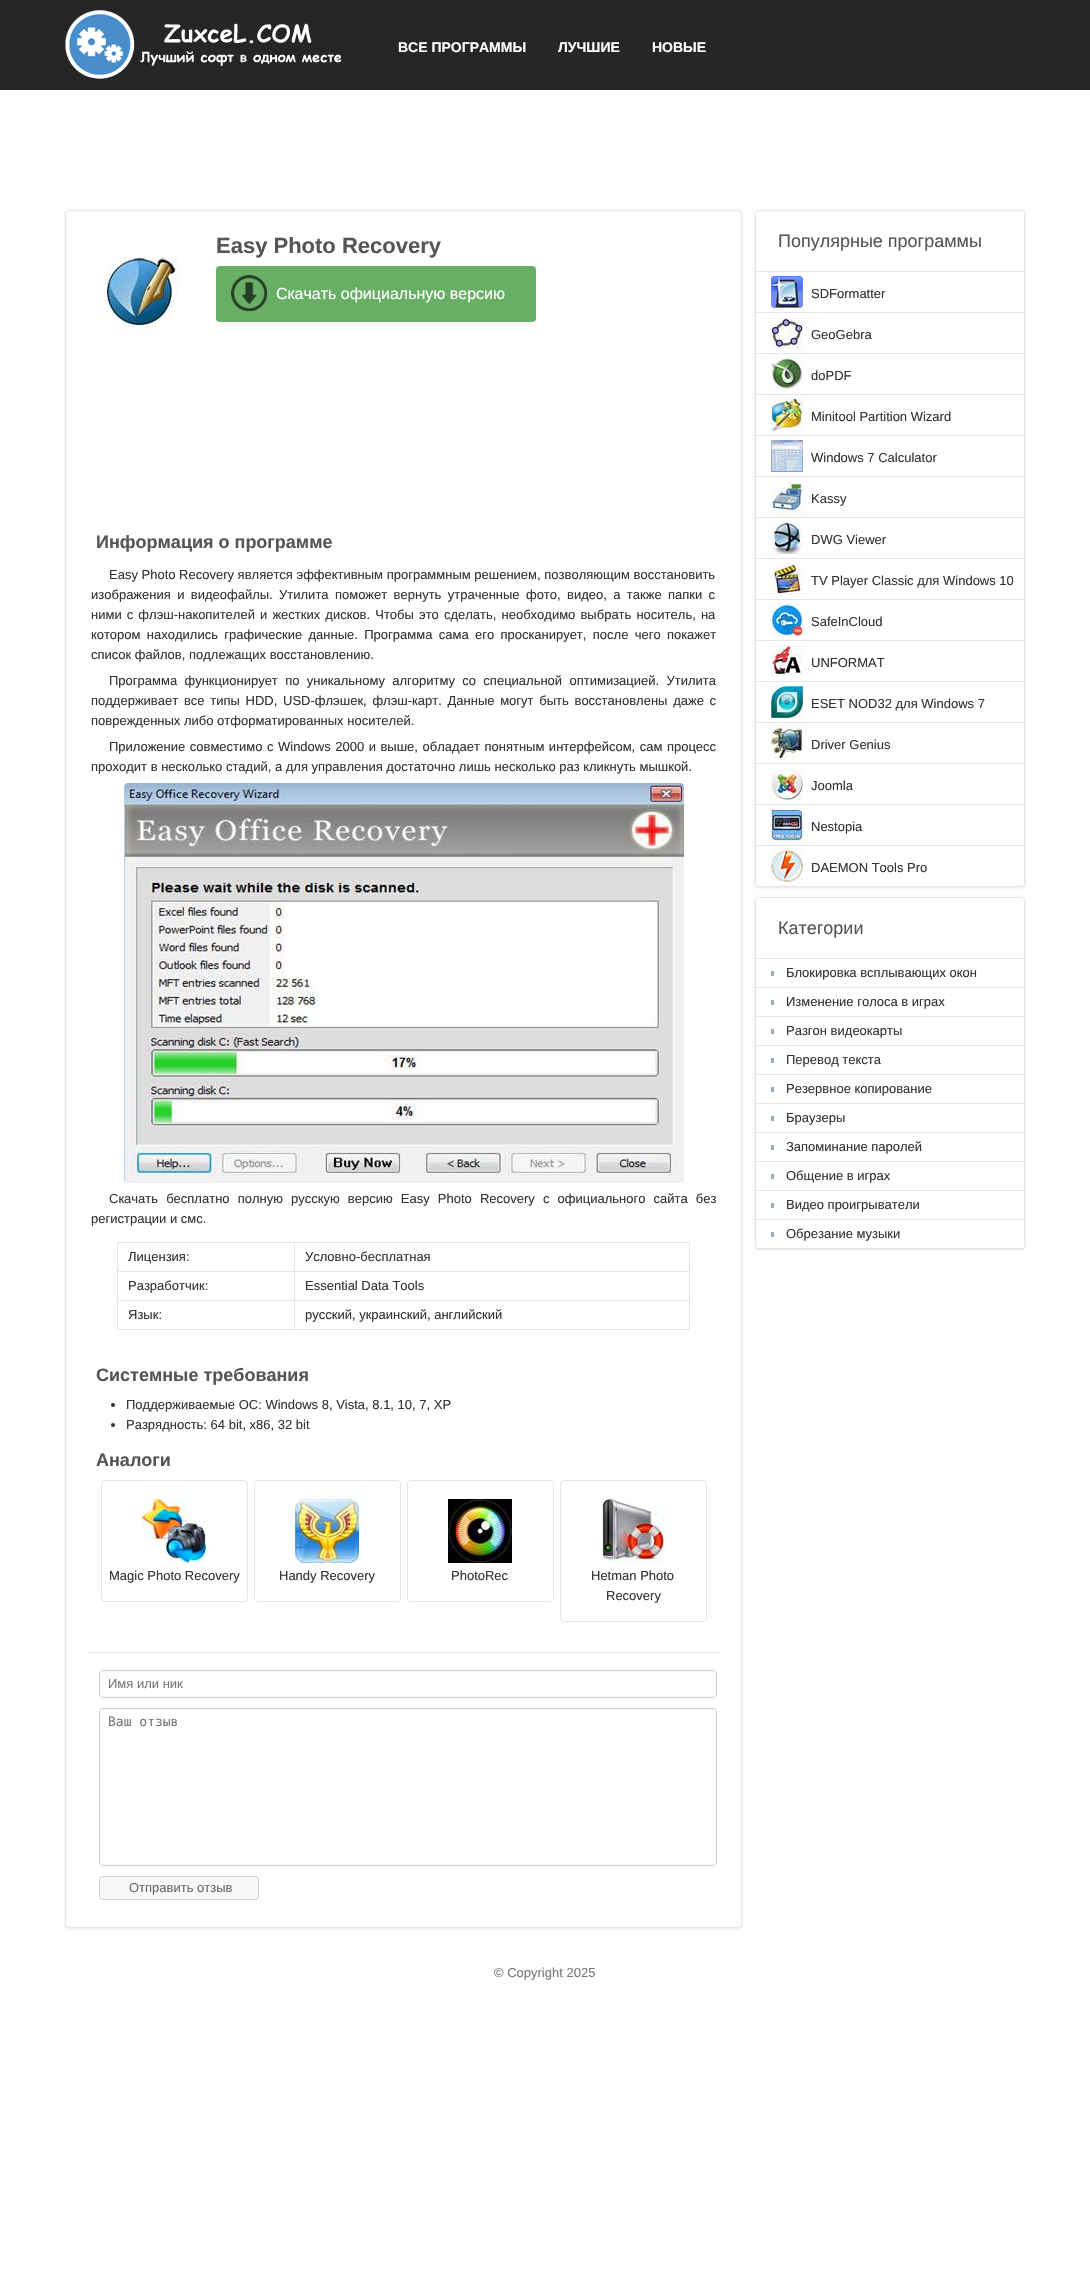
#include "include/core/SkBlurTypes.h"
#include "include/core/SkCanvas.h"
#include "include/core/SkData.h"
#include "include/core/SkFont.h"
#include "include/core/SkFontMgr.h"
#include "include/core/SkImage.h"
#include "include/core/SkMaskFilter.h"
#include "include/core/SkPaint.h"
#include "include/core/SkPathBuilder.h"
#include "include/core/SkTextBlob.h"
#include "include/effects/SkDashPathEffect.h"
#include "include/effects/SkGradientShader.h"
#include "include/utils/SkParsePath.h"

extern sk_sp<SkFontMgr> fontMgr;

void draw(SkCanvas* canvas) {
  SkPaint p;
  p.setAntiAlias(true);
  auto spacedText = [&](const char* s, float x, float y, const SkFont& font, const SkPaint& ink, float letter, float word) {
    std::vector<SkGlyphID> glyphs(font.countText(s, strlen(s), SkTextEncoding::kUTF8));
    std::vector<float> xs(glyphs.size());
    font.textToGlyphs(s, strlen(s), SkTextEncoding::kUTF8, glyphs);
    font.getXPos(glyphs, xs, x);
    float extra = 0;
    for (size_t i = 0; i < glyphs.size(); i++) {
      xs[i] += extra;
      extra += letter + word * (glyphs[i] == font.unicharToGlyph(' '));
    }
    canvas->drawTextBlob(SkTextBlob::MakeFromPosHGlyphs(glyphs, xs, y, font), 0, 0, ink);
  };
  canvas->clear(SK_ColorWHITE);
  p.setColor(SkColorSetRGB(36, 38, 40));
  canvas->drawRect(SkRect::MakeLTRB(0, 0, 1090, 90), p);
  canvas->drawImageRect(SkImages::DeferredFromEncodedData(SkData::MakeFromFileName("images/1.png")), SkRect::MakeLTRB(65, 10, 342, 79), SkSamplingOptions());
  p.setColor(SkColorSetRGB(233, 233, 233));
  p.setMaskFilter(SkMaskFilter::MakeBlur(kNormal_SkBlurStyle, 1.5f));
  canvas->drawRoundRect(SkRect::MakeLTRB(65, 211, 742, 1929), 4, 4, p);
  p.setMaskFilter(nullptr);
  p.setColor(SK_ColorWHITE);
  canvas->drawRoundRect(SkRect::MakeLTRB(65.5f, 210.5f, 741.5f, 1927.5f), 3.5f, 3.5f, p);
  p.setStyle(SkPaint::kStroke_Style);
  p.setStrokeWidth(1);
  p.setColor(SkColorSetRGB(229, 229, 229));
  canvas->drawRoundRect(SkRect::MakeLTRB(65.5f, 210.5f, 741.5f, 1927.5f), 3.5f, 3.5f, p);
  canvas->drawImageRect(SkImages::DeferredFromEncodedData(SkData::MakeFromFileName("images/2.png")), SkRect::MakeLTRB(106, 257, 179, 336), SkSamplingOptions());
  p.setStyle(SkPaint::kFill_Style);
  p.setColor(SkColorSetRGB(104, 174, 101));
  canvas->drawRoundRect(SkRect::MakeLTRB(216, 266, 536, 322), 4, 4, p);
  canvas->drawImageRect(SkImages::DeferredFromEncodedData(SkData::MakeFromFileName("images/3.png")), SkRect::MakeLTRB(231, 275, 267, 311), SkSamplingOptions());
  canvas->drawImageRect(SkImages::DeferredFromEncodedData(SkData::MakeFromFileName("images/4.png")), SkRect::MakeLTRB(124, 783, 684, 1183), SkSamplingOptions());
  p.setColor(SkColorSetRGB(229, 229, 229));
  canvas->drawRect(SkRect::MakeLTRB(117, 1242, 690, 1243), p);
  canvas->drawRect(SkRect::MakeLTRB(689, 1242, 690, 1330), p);
  canvas->drawRect(SkRect::MakeLTRB(117, 1329, 690, 1330), p);
  canvas->drawRect(SkRect::MakeLTRB(117, 1242, 118, 1330), p);
  canvas->drawRect(SkRect::MakeLTRB(294, 1271, 690, 1272), p);
  canvas->drawRect(SkRect::MakeLTRB(294, 1300, 690, 1301), p);
  canvas->drawRect(SkRect::MakeLTRB(294, 1300, 295, 1330), p);
  canvas->drawRect(SkRect::MakeLTRB(117, 1300, 295, 1301), p);
  canvas->drawRect(SkRect::MakeLTRB(294, 1271, 295, 1301), p);
  canvas->drawRect(SkRect::MakeLTRB(117, 1271, 295, 1272), p);
  canvas->drawRect(SkRect::MakeLTRB(294, 1242, 295, 1272), p);
  p.setColor(SkColorSetRGB(51, 51, 51));
  canvas->drawCircle(113, 1405, 2, p);
  canvas->drawCircle(113, 1425, 2, p);
  p.setStyle(SkPaint::kStroke_Style);
  p.setColor(SkColorSetRGB(229, 229, 229));
  canvas->drawRoundRect(SkRect::MakeLTRB(101.5f, 1480.5f, 247.5f, 1601.5f), 3.5f, 3.5f, p);
  canvas->drawImageRect(SkImages::DeferredFromEncodedData(SkData::MakeFromFileName("images/5.png")), SkRect::MakeLTRB(142, 1499, 206, 1563), SkSamplingOptions());
  canvas->drawRoundRect(SkRect::MakeLTRB(254.5f, 1480.5f, 400.5f, 1601.5f), 3.5f, 3.5f, p);
  canvas->drawImageRect(SkImages::DeferredFromEncodedData(SkData::MakeFromFileName("images/6.png")), SkRect::MakeLTRB(295, 1499, 359, 1563), SkSamplingOptions());
  canvas->drawRoundRect(SkRect::MakeLTRB(407.5f, 1480.5f, 553.5f, 1601.5f), 3.5f, 3.5f, p);
  canvas->drawImageRect(SkImages::DeferredFromEncodedData(SkData::MakeFromFileName("images/7.png")), SkRect::MakeLTRB(448, 1499, 512, 1563), SkSamplingOptions());
  canvas->drawRoundRect(SkRect::MakeLTRB(560.5f, 1480.5f, 706.5f, 1621.5f), 3.5f, 3.5f, p);
  canvas->drawImageRect(SkImages::DeferredFromEncodedData(SkData::MakeFromFileName("images/8.png")), SkRect::MakeLTRB(601, 1499, 665, 1563), SkSamplingOptions());
  p.setStyle(SkPaint::kFill_Style);
  canvas->drawRect(SkRect::MakeLTRB(87, 1652, 721, 1653), p);
  p.setStyle(SkPaint::kStroke_Style);
  p.setColor(SkColorSetRGB(204, 204, 204));
  canvas->drawRoundRect(SkRect::MakeLTRB(99.5f, 1670.5f, 716.5f, 1697.5f), 3.5f, 3.5f, p);
  canvas->drawRoundRect(SkRect::MakeLTRB(99.5f, 1708.5f, 716.5f, 1865.5f), 3.5f, 3.5f, p);
  p.setStyle(SkPaint::kFill_Style);
  p.setColor(SkColorSetRGB(249, 249, 249));
  canvas->drawRoundRect(SkRect::MakeLTRB(99.5f, 1876.5f, 258.5f, 1899.5f), 3.5f, 3.5f, p);
  p.setStyle(SkPaint::kStroke_Style);
  p.setColor(SkColorSetRGB(204, 204, 204));
  canvas->drawRoundRect(SkRect::MakeLTRB(99.5f, 1876.5f, 258.5f, 1899.5f), 3.5f, 3.5f, p);
  p.setStyle(SkPaint::kFill_Style);
  p.setColor(SkColorSetRGB(233, 233, 233));
  p.setMaskFilter(SkMaskFilter::MakeBlur(kNormal_SkBlurStyle, 1.5f));
  canvas->drawRoundRect(SkRect::MakeLTRB(755, 211, 1025, 888), 4, 4, p);
  p.setMaskFilter(nullptr);
  p.setColor(SK_ColorWHITE);
  canvas->drawRoundRect(SkRect::MakeLTRB(755, 210, 1025, 887), 4, 4, p);
  p.setColor(SkColorSetRGB(229, 229, 229));
  canvas->drawPath(SkPathBuilder(SkPathFillType::kEvenOdd).moveTo(759, 210).lineTo(1021, 210).cubicTo(1023, 210, 1025, 212, 1025, 214).lineTo(1025, 883).cubicTo(1025, 885, 1023, 887, 1021, 887).lineTo(759, 887).cubicTo(757, 887, 755, 885, 755, 883).lineTo(755, 214).cubicTo(755, 212, 757, 210, 759, 210).close().moveTo(759, 211).lineTo(1021, 211).cubicTo(1023, 211, 1024, 212, 1024, 214).lineTo(1024, 883).cubicTo(1024, 885, 1023, 887, 1021, 887).lineTo(759, 887).cubicTo(757, 887, 756, 885, 756, 883).lineTo(756, 214).cubicTo(756, 212, 757, 211, 759, 211).close().detach(), p);
  canvas->drawRect(SkRect::MakeLTRB(756, 271, 1024, 272), p);
  canvas->drawRect(SkRect::MakeLTRB(756, 312, 1024, 313), p);
  canvas->drawImageRect(SkImages::DeferredFromEncodedData(SkData::MakeFromFileName("images/9.png")), SkRect::MakeLTRB(771, 276, 803, 308), SkSamplingOptions());
  canvas->drawRect(SkRect::MakeLTRB(756, 353, 1024, 354), p);
  canvas->drawImageRect(SkImages::DeferredFromEncodedData(SkData::MakeFromFileName("images/10.png")), SkRect::MakeLTRB(771, 317, 803, 349), SkSamplingOptions());
  canvas->drawRect(SkRect::MakeLTRB(756, 394, 1024, 395), p);
  canvas->drawImageRect(SkImages::DeferredFromEncodedData(SkData::MakeFromFileName("images/11.png")), SkRect::MakeLTRB(771, 358, 803, 390), SkSamplingOptions());
  canvas->drawRect(SkRect::MakeLTRB(756, 435, 1024, 436), p);
  canvas->drawImageRect(SkImages::DeferredFromEncodedData(SkData::MakeFromFileName("images/12.png")), SkRect::MakeLTRB(771, 399, 803, 431), SkSamplingOptions());
  canvas->drawRect(SkRect::MakeLTRB(756, 476, 1024, 477), p);
  canvas->drawImageRect(SkImages::DeferredFromEncodedData(SkData::MakeFromFileName("images/13.png")), SkRect::MakeLTRB(771, 440, 803, 472), SkSamplingOptions());
  canvas->drawRect(SkRect::MakeLTRB(756, 517, 1024, 518), p);
  canvas->drawImageRect(SkImages::DeferredFromEncodedData(SkData::MakeFromFileName("images/14.png")), SkRect::MakeLTRB(771, 481, 803, 513), SkSamplingOptions());
  canvas->drawRect(SkRect::MakeLTRB(756, 558, 1024, 559), p);
  canvas->drawImageRect(SkImages::DeferredFromEncodedData(SkData::MakeFromFileName("images/15.png")), SkRect::MakeLTRB(771, 522, 803, 554), SkSamplingOptions());
  canvas->drawRect(SkRect::MakeLTRB(756, 599, 1024, 600), p);
  canvas->drawImageRect(SkImages::DeferredFromEncodedData(SkData::MakeFromFileName("images/16.png")), SkRect::MakeLTRB(771, 563, 803, 595), SkSamplingOptions());
  canvas->drawRect(SkRect::MakeLTRB(756, 640, 1024, 641), p);
  canvas->drawImageRect(SkImages::DeferredFromEncodedData(SkData::MakeFromFileName("images/17.png")), SkRect::MakeLTRB(771, 604, 803, 636), SkSamplingOptions());
  canvas->drawRect(SkRect::MakeLTRB(756, 681, 1024, 682), p);
  canvas->drawImageRect(SkImages::DeferredFromEncodedData(SkData::MakeFromFileName("images/18.png")), SkRect::MakeLTRB(771, 645, 803, 677), SkSamplingOptions());
  canvas->drawRect(SkRect::MakeLTRB(756, 722, 1024, 723), p);
  canvas->drawImageRect(SkImages::DeferredFromEncodedData(SkData::MakeFromFileName("images/19.png")), SkRect::MakeLTRB(771, 686, 803, 718), SkSamplingOptions());
  canvas->drawRect(SkRect::MakeLTRB(756, 763, 1024, 764), p);
  canvas->drawImageRect(SkImages::DeferredFromEncodedData(SkData::MakeFromFileName("images/20.png")), SkRect::MakeLTRB(771, 727, 803, 759), SkSamplingOptions());
  canvas->drawRect(SkRect::MakeLTRB(756, 804, 1024, 805), p);
  canvas->drawImageRect(SkImages::DeferredFromEncodedData(SkData::MakeFromFileName("images/21.png")), SkRect::MakeLTRB(771, 768, 803, 800), SkSamplingOptions());
  canvas->drawRect(SkRect::MakeLTRB(756, 845, 1024, 846), p);
  canvas->drawImageRect(SkImages::DeferredFromEncodedData(SkData::MakeFromFileName("images/22.png")), SkRect::MakeLTRB(771, 809, 803, 841), SkSamplingOptions());
  canvas->drawRect(SkRect::MakeLTRB(756, 886, 1024, 887), p);
  canvas->drawImageRect(SkImages::DeferredFromEncodedData(SkData::MakeFromFileName("images/23.png")), SkRect::MakeLTRB(771, 850, 803, 882), SkSamplingOptions());
  p.setColor(SkColorSetRGB(233, 233, 233));
  p.setMaskFilter(SkMaskFilter::MakeBlur(kNormal_SkBlurStyle, 1.5f));
  canvas->drawRoundRect(SkRect::MakeLTRB(755, 898, 1025, 1250), 4, 4, p);
  p.setMaskFilter(nullptr);
  p.setColor(SK_ColorWHITE);
  canvas->drawRoundRect(SkRect::MakeLTRB(755, 897, 1025, 1249), 4, 4, p);
  p.setColor(SkColorSetRGB(229, 229, 229));
  canvas->drawPath(SkPathBuilder(SkPathFillType::kEvenOdd).moveTo(759, 897).lineTo(1021, 897).cubicTo(1023, 897, 1025, 899, 1025, 901).lineTo(1025, 1245).cubicTo(1025, 1247, 1023, 1249, 1021, 1249).lineTo(759, 1249).cubicTo(757, 1249, 755, 1247, 755, 1245).lineTo(755, 901).cubicTo(755, 899, 757, 897, 759, 897).close().moveTo(759, 898).lineTo(1021, 898).cubicTo(1023, 898, 1024, 899, 1024, 901).lineTo(1024, 1245).cubicTo(1024, 1247, 1023, 1249, 1021, 1249).lineTo(759, 1249).cubicTo(757, 1249, 756, 1247, 756, 1245).lineTo(756, 901).cubicTo(756, 899, 757, 898, 759, 898).close().detach(), p);
  canvas->drawRect(SkRect::MakeLTRB(756, 958, 1024, 959), p);
  p.setColor(SkColorSetRGB(154, 171, 188));
  canvas->drawRect(SkRect::MakeLTRB(771, 971, 774, 976), p);
  p.setColor(SkColorSetRGB(229, 229, 229));
  canvas->drawRect(SkRect::MakeLTRB(756, 987, 1024, 988), p);
  p.setColor(SkColorSetRGB(154, 171, 188));
  canvas->drawRect(SkRect::MakeLTRB(771, 1000, 774, 1005), p);
  p.setColor(SkColorSetRGB(229, 229, 229));
  canvas->drawRect(SkRect::MakeLTRB(756, 1016, 1024, 1017), p);
  p.setColor(SkColorSetRGB(154, 171, 188));
  canvas->drawRect(SkRect::MakeLTRB(771, 1029, 774, 1034), p);
  p.setColor(SkColorSetRGB(229, 229, 229));
  canvas->drawRect(SkRect::MakeLTRB(756, 1045, 1024, 1046), p);
  p.setColor(SkColorSetRGB(154, 171, 188));
  canvas->drawRect(SkRect::MakeLTRB(771, 1058, 774, 1063), p);
  p.setColor(SkColorSetRGB(229, 229, 229));
  canvas->drawRect(SkRect::MakeLTRB(756, 1074, 1024, 1075), p);
  p.setColor(SkColorSetRGB(154, 171, 188));
  canvas->drawRect(SkRect::MakeLTRB(771, 1087, 774, 1092), p);
  p.setColor(SkColorSetRGB(229, 229, 229));
  canvas->drawRect(SkRect::MakeLTRB(756, 1103, 1024, 1104), p);
  p.setColor(SkColorSetRGB(154, 171, 188));
  canvas->drawRect(SkRect::MakeLTRB(771, 1116, 774, 1121), p);
  p.setColor(SkColorSetRGB(229, 229, 229));
  canvas->drawRect(SkRect::MakeLTRB(756, 1132, 1024, 1133), p);
  p.setColor(SkColorSetRGB(154, 171, 188));
  canvas->drawRect(SkRect::MakeLTRB(771, 1145, 774, 1150), p);
  p.setColor(SkColorSetRGB(229, 229, 229));
  canvas->drawRect(SkRect::MakeLTRB(756, 1161, 1024, 1162), p);
  p.setColor(SkColorSetRGB(154, 171, 188));
  canvas->drawRect(SkRect::MakeLTRB(771, 1174, 774, 1179), p);
  p.setColor(SkColorSetRGB(229, 229, 229));
  canvas->drawRect(SkRect::MakeLTRB(756, 1190, 1024, 1191), p);
  p.setColor(SkColorSetRGB(154, 171, 188));
  canvas->drawRect(SkRect::MakeLTRB(771, 1203, 774, 1208), p);
  p.setColor(SkColorSetRGB(229, 229, 229));
  canvas->drawRect(SkRect::MakeLTRB(756, 1219, 1024, 1220), p);
  p.setColor(SkColorSetRGB(154, 171, 188));
  canvas->drawRect(SkRect::MakeLTRB(771, 1232, 774, 1237), p);
  p.setColor(SkColorSetRGB(229, 229, 229));
  canvas->drawRect(SkRect::MakeLTRB(756, 1248, 1024, 1249), p);
  SkFont font1(fontMgr->matchFamilyStyle("Liberation Sans", SkFontStyle::Bold()), 14);
  font1.setSubpixel(true);
  p.setColor(SK_ColorWHITE);
  canvas->drawString("ВСЕ ПРОГРАММЫ", 398, 52, font1, p);
  canvas->drawString("ЛУЧШИЕ", 558, 52, font1, p);
  canvas->drawString("НОВЫЕ", 652, 52, font1, p);
  SkFont font2(fontMgr->matchFamilyStyle("Liberation Sans", SkFontStyle::Bold()), 22);
  font2.setSubpixel(true);
  p.setColor(SkColorSetRGB(85, 85, 85));
  canvas->drawString("Easy Photo Recovery", 216, 253, font2, p);
  SkFont font3(fontMgr->matchFamilyStyle("Liberation Sans", SkFontStyle::Normal()), 16);
  font3.setSubpixel(true);
  p.setColor(SK_ColorWHITE);
  canvas->drawString("Скачать официальную версию", 276, 299, font3, p);
  SkFont font4(fontMgr->matchFamilyStyle("Liberation Sans", SkFontStyle::Bold()), 18);
  font4.setSubpixel(true);
  p.setColor(SkColorSetRGB(85, 85, 85));
  canvas->drawString("Информация о программе", 96, 548, font4, p);
  SkFont font5(fontMgr->matchFamilyStyle("Liberation Sans", SkFontStyle::Normal()), 13);
  font5.setSubpixel(true);
  p.setColor(SkColorSetRGB(51, 51, 51));
  canvas->drawString("Easy Photo Recovery является эффективным программным решением, позволяющим восстановить", 109, 579, font5, p);
  spacedText("изображения и видеофайлы. Утилита поможет вернуть утраченные фото, видео, а также папки с", 91, 599, font5, p, 0, 2.75f);
  spacedText("ними с флэш-накопителей и жестких дисков. Чтобы это сделать, необходимо выбрать носитель, на", 91, 619, font5, p, 0, 1.5f);
  spacedText("котором находились графические данные. Программа сама его просканирует, после чего покажет", 91, 639, font5, p, 0, 2.75f);
  canvas->drawString("список файлов, подлежащих восстановлению.", 91, 659, font5, p);
  spacedText("Программа функционирует по уникальному алгоритму со специальной оптимизацией. Утилита", 109, 685, font5, p, 0, 3.75f);
  spacedText("поддерживает все типы HDD, USD-флэшек, флэш-карт. Данные могут быть восстановлены даже с", 91, 705, font5, p, 0, 2.1f);
  canvas->drawString("поврежденных либо отформатированных носителей.", 91, 725, font5, p);
  spacedText("Приложение совместимо с Windows 2000 и выше, обладает понятным интерфейсом, сам процесс", 109, 751, font5, p, 0, 0.9f);
  canvas->drawString("проходит в несколько стадий, а для управления достаточно лишь несколько раз кликнуть мышкой.", 91, 771, font5, p);
  spacedText("Скачать бесплатно полную русскую версию Easy Photo Recovery с официального сайта без", 109, 1203, font5, p, 0, 4.5f);
  canvas->drawString("регистрации и смс.", 91, 1223, font5, p);
  canvas->drawString("Лицензия:", 128, 1261, font5, p);
  canvas->drawString("Условно-бесплатная", 305, 1261, font5, p);
  canvas->drawString("Разработчик:", 128, 1290, font5, p);
  canvas->drawString("Essential Data Tools", 305, 1290, font5, p);
  canvas->drawString("Язык:", 128, 1319, font5, p);
  canvas->drawString("русский, украинский, английский", 305, 1319, font5, p);
  p.setColor(SkColorSetRGB(85, 85, 85));
  canvas->drawString("Системные требования", 96, 1381, font4, p);
  p.setColor(SkColorSetRGB(51, 51, 51));
  canvas->drawString("Поддерживаемые ОС: Windows 8, Vista, 8.1, 10, 7, XP", 126, 1409, font5, p);
  canvas->drawString("Разрядность: 64 bit, x86, 32 bit", 126, 1429, font5, p);
  p.setColor(SkColorSetRGB(85, 85, 85));
  canvas->drawString("Аналоги", 96, 1466, font4, p);
  p.setColor(SkColorSetRGB(51, 51, 51));
  canvas->drawString("Magic Photo Recovery", 109, 1580, font5, p);
  canvas->drawString("Handy Recovery", 279, 1580, font5, p);
  canvas->drawString("PhotoRec", 451, 1580, font5, p);
  canvas->drawString("Hetman Photo", 591, 1580, font5, p);
  canvas->drawString("Recovery", 606, 1600, font5, p);
  p.setColor(SkColorSetRGB(119, 119, 119));
  canvas->drawString("Имя или ник", 108, 1688, font5, p);
  SkFont font6(fontMgr->matchFamilyStyle("DejaVu Sans Mono", SkFontStyle::Normal()), 13);
  font6.setSubpixel(true);
  canvas->drawString("Ваш отзыв", 108, 1726, font6, p);
  p.setColor(SkColorSetRGB(102, 102, 102));
  canvas->drawString("Отправить отзыв", 129, 1892, font5, p);
  SkFont font7(fontMgr->matchFamilyStyle("Liberation Sans", SkFontStyle::Normal()), 18);
  font7.setSubpixel(true);
  p.setColor(SkColorSetRGB(85, 85, 85));
  canvas->drawString("Популярные программы", 778, 247, font7, p);
  p.setColor(SkColorSetRGB(51, 51, 51));
  canvas->drawString("SDFormatter", 811, 298, font5, p);
  canvas->drawString("GeoGebra", 811, 339, font5, p);
  canvas->drawString("doPDF", 811, 380, font5, p);
  canvas->drawString("Minitool Partition Wizard", 811, 421, font5, p);
  canvas->drawString("Windows 7 Calculator", 811, 462, font5, p);
  canvas->drawString("Kassy", 811, 503, font5, p);
  canvas->drawString("DWG Viewer", 811, 544, font5, p);
  canvas->drawString("TV Player Classic для Windows 10", 811, 585, font5, p);
  canvas->drawString("SafeInCloud", 811, 626, font5, p);
  canvas->drawString("UNFORMAT", 811, 667, font5, p);
  canvas->drawString("ESET NOD32 для Windows 7", 811, 708, font5, p);
  canvas->drawString("Driver Genius", 811, 749, font5, p);
  canvas->drawString("Joomla", 811, 790, font5, p);
  canvas->drawString("Nestopia", 811, 831, font5, p);
  canvas->drawString("DAEMON Tools Pro", 811, 872, font5, p);
  p.setColor(SkColorSetRGB(85, 85, 85));
  canvas->drawString("Категории", 778, 934, font7, p);
  p.setColor(SkColorSetRGB(51, 51, 51));
  canvas->drawString("Блокировка всплывающих окон", 786, 977, font5, p);
  canvas->drawString("Изменение голоса в играх", 786, 1006, font5, p);
  canvas->drawString("Разгон видеокарты", 786, 1035, font5, p);
  canvas->drawString("Перевод текста", 786, 1064, font5, p);
  canvas->drawString("Резервное копирование", 786, 1093, font5, p);
  canvas->drawString("Браузеры", 786, 1122, font5, p);
  canvas->drawString("Запоминание паролей", 786, 1151, font5, p);
  canvas->drawString("Общение в играх", 786, 1180, font5, p);
  canvas->drawString("Видео проигрыватели", 786, 1209, font5, p);
  canvas->drawString("Обрезание музыки", 786, 1238, font5, p);
  p.setColor(SkColorSetRGB(119, 119, 119));
  canvas->drawString("© Copyright 2025", 494, 1977, font5, p);
}
